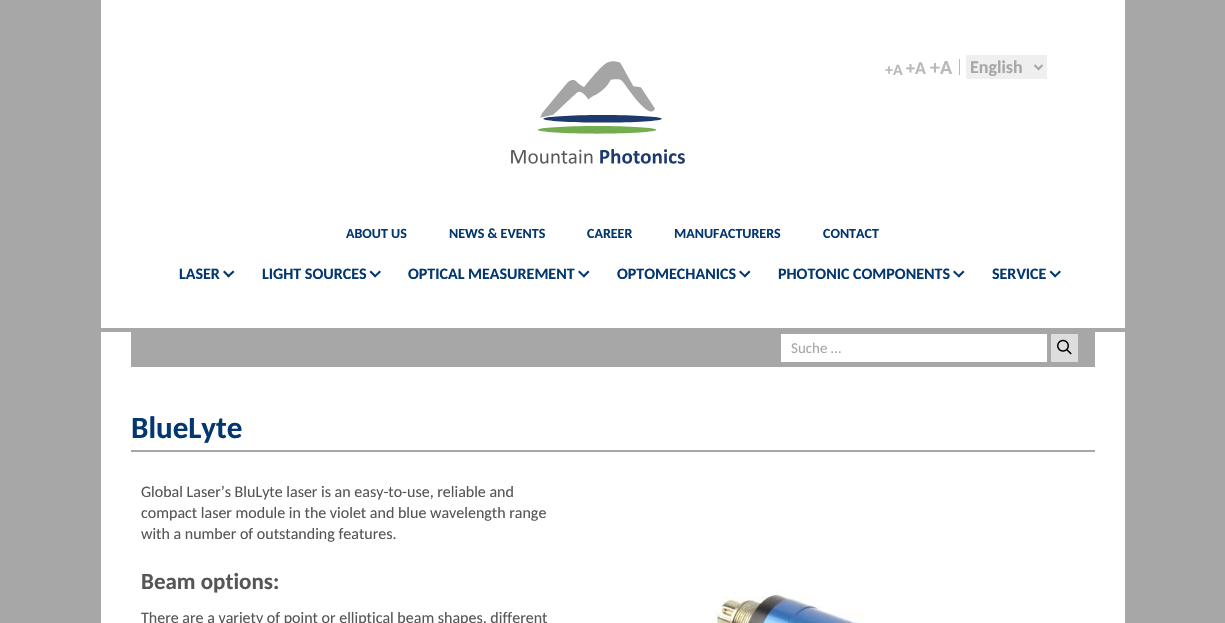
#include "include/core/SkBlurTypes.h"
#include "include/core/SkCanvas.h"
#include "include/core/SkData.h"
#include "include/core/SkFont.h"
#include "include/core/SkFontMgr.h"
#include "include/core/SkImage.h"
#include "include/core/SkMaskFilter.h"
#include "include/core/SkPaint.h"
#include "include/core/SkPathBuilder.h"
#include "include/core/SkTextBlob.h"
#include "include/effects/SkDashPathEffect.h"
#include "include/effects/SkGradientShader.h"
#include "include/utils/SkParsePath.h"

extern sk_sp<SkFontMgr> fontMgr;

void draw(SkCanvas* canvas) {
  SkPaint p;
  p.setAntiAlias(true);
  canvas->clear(SkColorSetRGB(168, 167, 167));
  p.setColor(SK_ColorWHITE);
  canvas->drawRect(SkRect::MakeLTRB(101, 0, 1125, 328), p);
  canvas->drawImageRect(SkImages::DeferredFromEncodedData(SkData::MakeFromFileName("images/1.png")), SkRect::MakeLTRB(511, 61, 685, 164), SkSamplingOptions());
  p.setColor(SkColorSetRGB(185, 185, 185));
  canvas->drawRect(SkRect::MakeLTRB(959, 59, 960, 75), p);
  p.setColor(SkColorSetRGB(239, 239, 239));
  canvas->drawRect(SkRect::MakeLTRB(966, 55, 1047, 79), p);
  p.setStyle(SkPaint::kStroke_Style);
  p.setStrokeWidth(2);
  p.setColor(SkColorSetRGB(168, 167, 167));
  canvas->drawPath(SkPathBuilder().moveTo(1034.5f, 65).lineTo(1038.5f, 69).lineTo(1042.5f, 65).detach(), p);
  p.setStyle(SkPaint::kFill_Style);
  p.setColor(SkColorSetRGB(2, 55, 112));
  canvas->drawPath(SkPathBuilder().moveTo(224.5f, 270.5f).lineTo(230, 276).lineTo(228.5f, 277.5f).lineTo(223, 272).close().detach(), p);
  canvas->drawPath(SkPathBuilder().moveTo(227, 276).lineTo(233, 270.5f).lineTo(234.5f, 272).lineTo(228.5f, 277.5f).close().detach(), p);
  canvas->drawPath(SkPathBuilder().moveTo(371, 270.5f).lineTo(376.5f, 276).lineTo(375, 277.5f).lineTo(369.5f, 272).close().detach(), p);
  canvas->drawPath(SkPathBuilder().moveTo(374, 276).lineTo(379.5f, 270.5f).lineTo(381, 272).lineTo(375, 277.5f).close().detach(), p);
  canvas->drawPath(SkPathBuilder().moveTo(579.5f, 270.5f).lineTo(585, 276).lineTo(584, 277.5f).lineTo(578, 272).close().detach(), p);
  canvas->drawPath(SkPathBuilder().moveTo(582.5f, 276).lineTo(588, 270.5f).lineTo(589.5f, 272).lineTo(584, 277.5f).close().detach(), p);
  canvas->drawPath(SkPathBuilder().moveTo(740.5f, 270.5f).lineTo(746, 276).lineTo(745, 277.5f).lineTo(739, 272).close().detach(), p);
  canvas->drawPath(SkPathBuilder().moveTo(743.5f, 276).lineTo(749, 270.5f).lineTo(750.5f, 272).lineTo(745, 277.5f).close().detach(), p);
  canvas->drawPath(SkPathBuilder().moveTo(954.5f, 270.5f).lineTo(960, 276).lineTo(959, 277.5f).lineTo(953, 272).close().detach(), p);
  canvas->drawPath(SkPathBuilder().moveTo(957.5f, 276).lineTo(963, 270.5f).lineTo(964.5f, 272).lineTo(959, 277.5f).close().detach(), p);
  canvas->drawPath(SkPathBuilder().moveTo(1051, 270.5f).lineTo(1056.5f, 276).lineTo(1055, 277.5f).lineTo(1049.5f, 272).close().detach(), p);
  canvas->drawPath(SkPathBuilder().moveTo(1054, 276).lineTo(1059.5f, 270.5f).lineTo(1061, 272).lineTo(1055, 277.5f).close().detach(), p);
  p.setColor(SK_ColorWHITE);
  canvas->drawRect(SkRect::MakeLTRB(101, 332, 1125, 623), p);
  p.setColor(SkColorSetRGB(168, 167, 167));
  canvas->drawRect(SkRect::MakeLTRB(131, 332, 1095, 367), p);
  p.setColor(SK_ColorWHITE);
  canvas->drawRect(SkRect::MakeLTRB(781, 334, 1047, 362), p);
  p.setColor(SkColorSetRGB(221, 221, 221));
  canvas->drawRect(SkRect::MakeLTRB(1051, 334, 1078, 362), p);
  canvas->drawImageRect(SkImages::DeferredFromEncodedData(SkData::MakeFromFileName("images/2.png")), SkRect::MakeLTRB(1057, 339, 1072, 355), SkSamplingOptions());
  p.setColor(SkColorSetRGB(168, 167, 167));
  canvas->drawRect(SkRect::MakeLTRB(131, 450, 1095, 452), p);
  canvas->drawImageRect(SkImages::DeferredFromEncodedData(SkData::MakeFromFileName("images/3.png")), SkRect::MakeLTRB(710, 590, 865, 623), SkSamplingOptions());
  SkFont font1(fontMgr->matchFamilyStyle("Carlito", SkFontStyle::Bold()), 16);
  font1.setSubpixel(true);
  p.setColor(SkColorSetRGB(185, 185, 185));
  canvas->drawString("+A", 885, 75, font1, p);
  SkFont font2(fontMgr->matchFamilyStyle("Carlito", SkFontStyle::Bold()), 18);
  font2.setSubpixel(true);
  canvas->drawString("+A", 906, 74, font2, p);
  SkFont font3(fontMgr->matchFamilyStyle("Carlito", SkFontStyle::Bold()), 20);
  font3.setSubpixel(true);
  canvas->drawString("+A", 930, 74, font3, p);
  p.setColor(SkColorSetRGB(168, 167, 167));
  canvas->drawString("English", 970, 73, font2, p);
  SkFont font4(fontMgr->matchFamilyStyle("Carlito", SkFontStyle::Bold()), 14);
  font4.setSubpixel(true);
  p.setColor(SkColorSetRGB(2, 55, 112));
  canvas->drawString("ABOUT US", 346, 238, font4, p);
  canvas->drawString("NEWS & EVENTS", 449, 238, font4, p);
  canvas->drawString("CAREER", 587, 238, font4, p);
  canvas->drawString("MANUFACTURERS", 674, 238, font4, p);
  canvas->drawString("CONTACT", 823, 238, font4, p);
  canvas->drawString("LASER", 179, 279, font1, p);
  canvas->drawString("LIGHT SOURCES", 262, 279, font1, p);
  canvas->drawString("OPTICAL MEASUREMENT", 408, 279, font1, p);
  canvas->drawString("OPTOMECHANICS", 617, 279, font1, p);
  canvas->drawString("PHOTONIC COMPONENTS", 778, 279, font1, p);
  canvas->drawString("SERVICE", 992, 279, font1, p);
  SkFont font5(fontMgr->matchFamilyStyle("Carlito", SkFontStyle::Normal()), 15);
  font5.setSubpixel(true);
  p.setColor(SkColorSetRGB(168, 167, 167));
  canvas->drawString("Suche …", 791, 353, font5, p);
  SkFont font6(fontMgr->matchFamilyStyle("Carlito", SkFontStyle::Bold()), 31);
  font6.setSubpixel(true);
  p.setColor(SkColorSetRGB(2, 55, 112));
  canvas->drawString("BlueLyte", 131, 438, font6, p);
  SkFont font7(fontMgr->matchFamilyStyle("Carlito", SkFontStyle::Normal()), 16);
  font7.setSubpixel(true);
  p.setColor(SkColorSetRGB(87, 86, 86));
  canvas->drawString("Global Laser’s BluLyte laser is an easy-to-use, reliable and", 141, 497, font7, p);
  canvas->drawString("compact laser module in the violet and blue wavelength range", 141, 518, font7, p);
  canvas->drawString("with a number of outstanding features.", 141, 539, font7, p);
  SkFont font8(fontMgr->matchFamilyStyle("Carlito", SkFontStyle::Bold()), 23);
  font8.setSubpixel(true);
  canvas->drawString("Beam options:", 141, 589, font8, p);
  canvas->drawString("There are a variety of point or elliptical beam shapes, different", 141, 623, font7, p);
}
